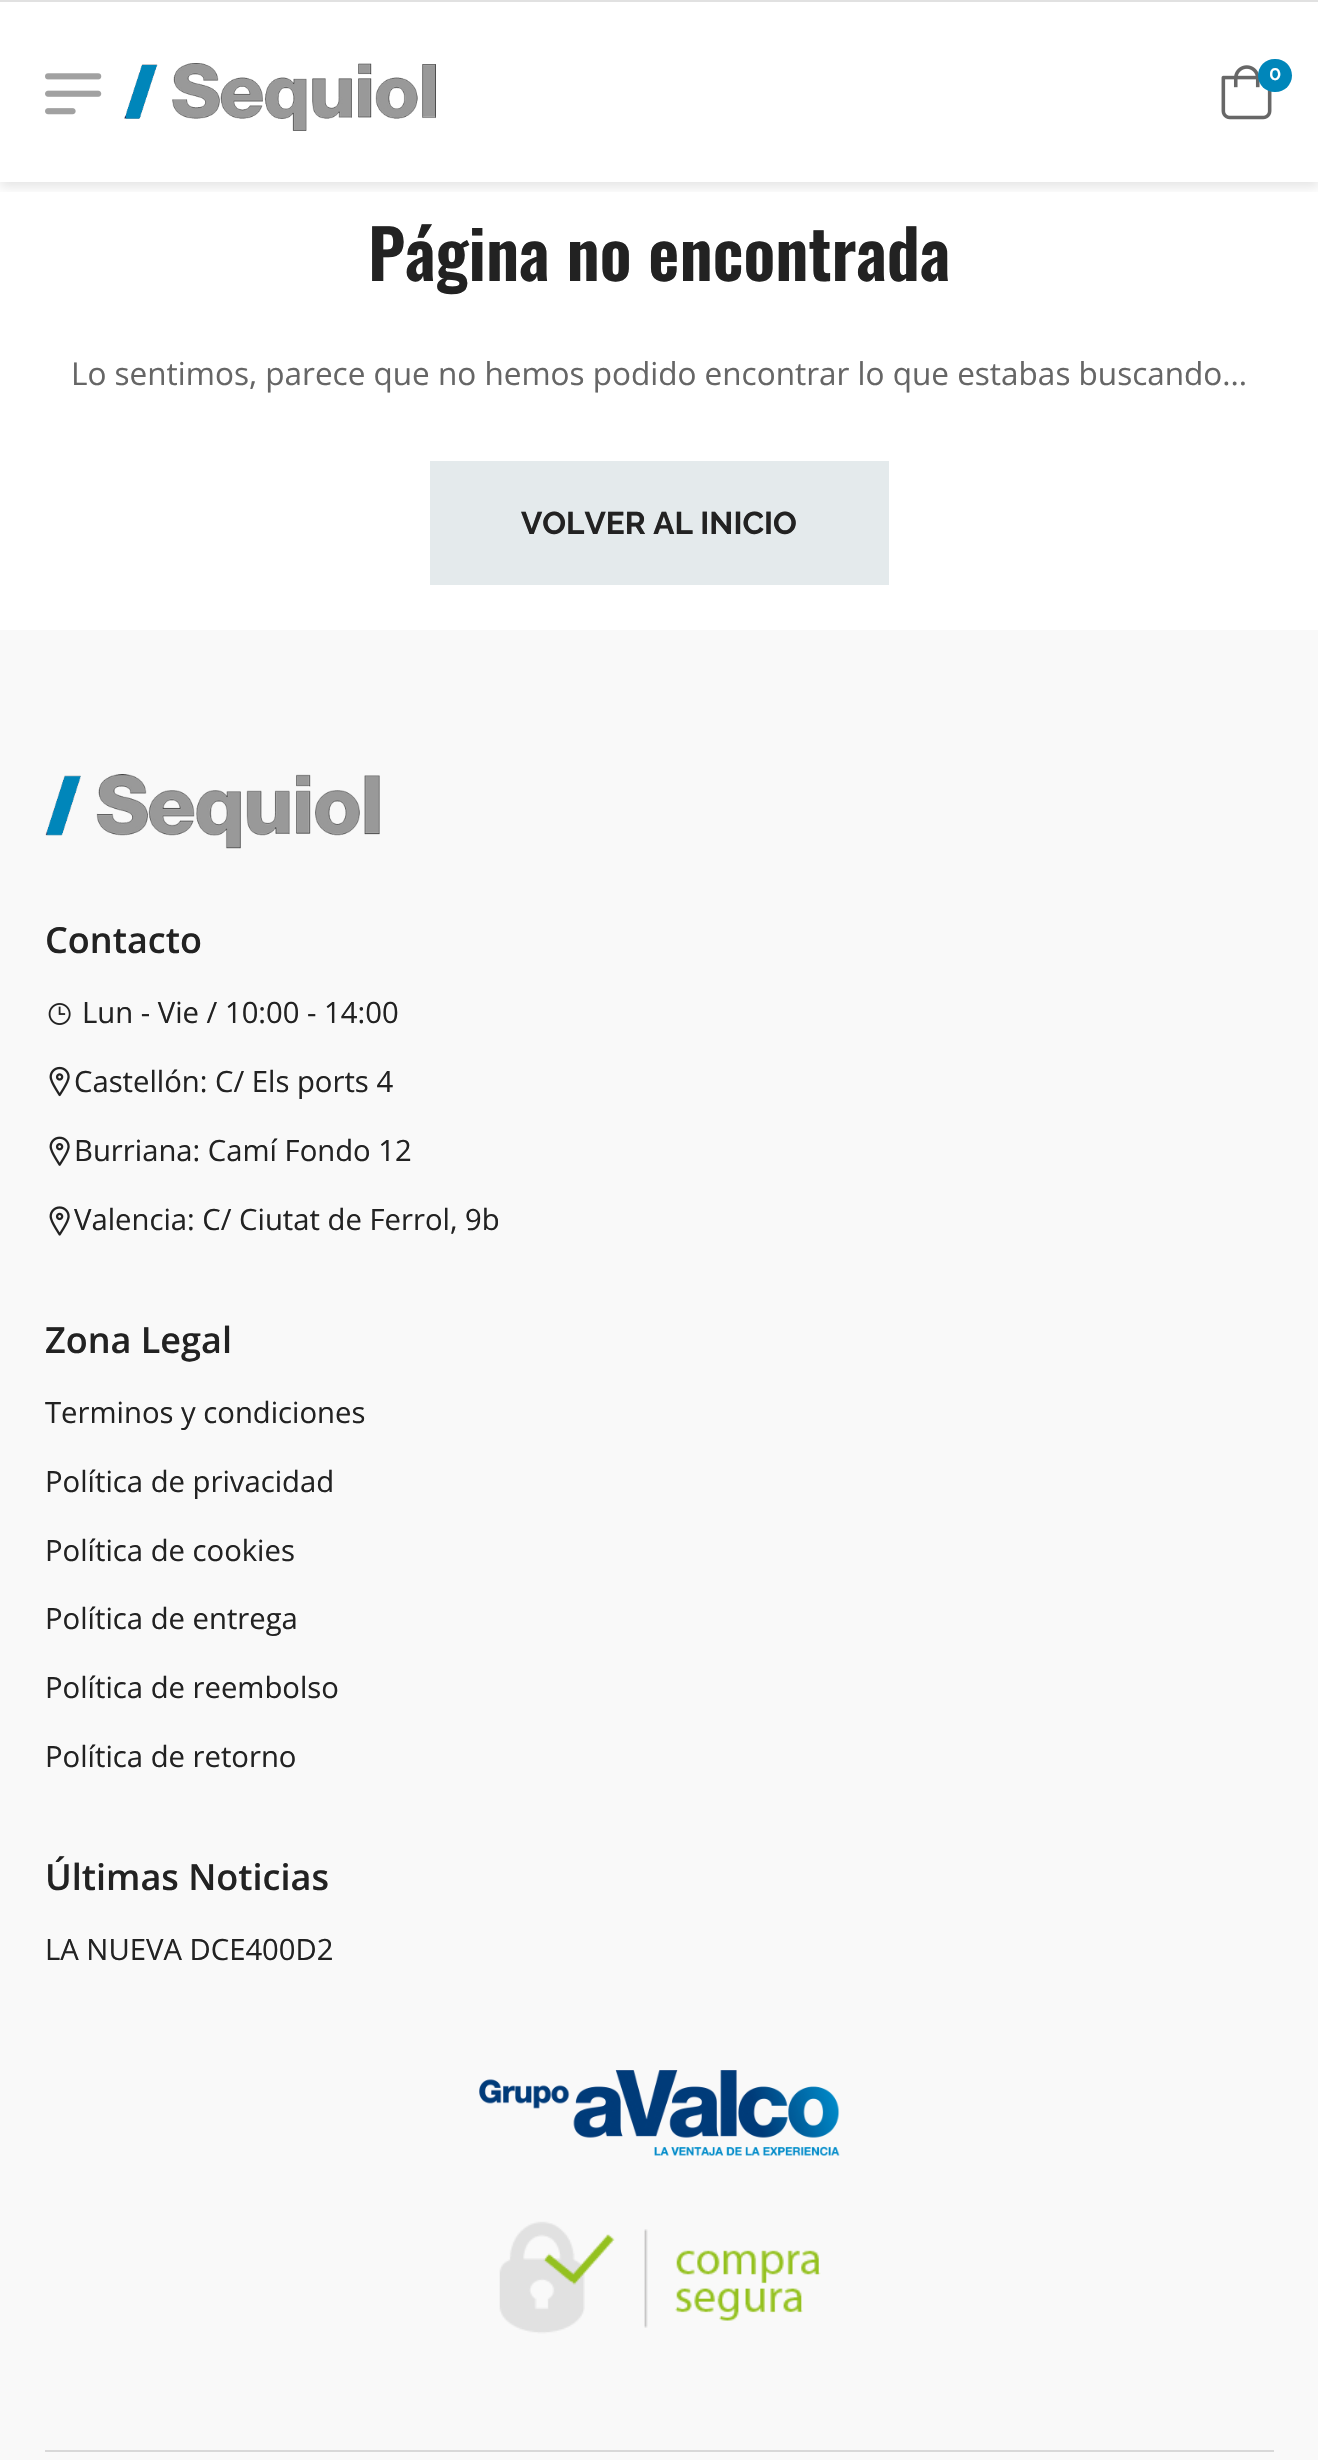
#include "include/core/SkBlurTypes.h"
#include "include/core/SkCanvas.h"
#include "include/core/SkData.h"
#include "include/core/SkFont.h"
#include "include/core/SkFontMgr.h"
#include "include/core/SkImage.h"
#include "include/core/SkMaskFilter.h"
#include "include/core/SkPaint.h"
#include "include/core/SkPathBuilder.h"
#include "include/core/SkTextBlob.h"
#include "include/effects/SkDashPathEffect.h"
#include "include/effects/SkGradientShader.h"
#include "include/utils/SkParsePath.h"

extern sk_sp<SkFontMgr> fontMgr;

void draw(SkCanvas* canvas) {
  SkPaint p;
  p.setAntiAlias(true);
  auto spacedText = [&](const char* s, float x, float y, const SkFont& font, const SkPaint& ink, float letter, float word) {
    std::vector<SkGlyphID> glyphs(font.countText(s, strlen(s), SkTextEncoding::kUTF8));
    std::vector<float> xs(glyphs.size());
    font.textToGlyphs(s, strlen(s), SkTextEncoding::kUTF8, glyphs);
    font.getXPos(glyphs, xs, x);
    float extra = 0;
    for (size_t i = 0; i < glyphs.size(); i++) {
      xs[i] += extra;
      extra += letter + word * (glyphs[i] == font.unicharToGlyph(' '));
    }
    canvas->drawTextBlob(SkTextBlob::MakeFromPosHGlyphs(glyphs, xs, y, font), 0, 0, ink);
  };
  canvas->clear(SK_ColorWHITE);
  canvas->save();
  canvas->clipRect(SkRect::MakeLTRB(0, 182, 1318, 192));
  p.setColor(SkColorSetARGB(26, 0, 0, 0));
  p.setMaskFilter(SkMaskFilter::MakeBlur(kNormal_SkBlurStyle, 5.5f));
  canvas->drawRect(SkRect::MakeLTRB(0, 5, 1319, 187), p);
  p.setMaskFilter(nullptr);
  canvas->restore();
  p.setColor(SkColorSetRGB(225, 225, 225));
  canvas->drawRect(SkRect::MakeLTRB(0, 0, 1318, 2), p);
  canvas->drawImageRect(SkImages::DeferredFromEncodedData(SkData::MakeFromFileName("images/1.png")), SkRect::MakeLTRB(45, 73, 102, 115), SkSamplingOptions());
  canvas->drawImageRect(SkImages::DeferredFromEncodedData(SkData::MakeFromFileName("images/2.png")), SkRect::MakeLTRB(124, 63, 436, 131), SkSamplingOptions());
  canvas->drawImageRect(SkImages::DeferredFromEncodedData(SkData::MakeFromFileName("images/3.png")), SkRect::MakeLTRB(1221, 65, 1272, 120), SkSamplingOptions());
  p.setColor(SkColorSetRGB(0, 134, 186));
  canvas->drawRoundRect(SkRect::MakeLTRB(1258, 59, 1292, 92), 16.5f, 16.5f, p);
  p.setColor(SkColorSetRGB(228, 234, 236));
  canvas->drawRect(SkRect::MakeLTRB(430, 461, 889, 585), p);
  p.setColor(SkColorSetRGB(249, 249, 249));
  canvas->drawRect(SkRect::MakeLTRB(0, 630, 1318, 2460), p);
  canvas->drawImageRect(SkImages::DeferredFromEncodedData(SkData::MakeFromFileName("images/4.png")), SkRect::MakeLTRB(45, 774, 380, 849), SkSamplingOptions());
  canvas->drawImageRect(SkImages::DeferredFromEncodedData(SkData::MakeFromFileName("images/5.png")), SkRect::MakeLTRB(48, 1003, 71, 1025), SkSamplingOptions());
  canvas->drawImageRect(SkImages::DeferredFromEncodedData(SkData::MakeFromFileName("images/6.png")), SkRect::MakeLTRB(49, 1066, 70, 1097), SkSamplingOptions());
  canvas->drawImageRect(SkImages::DeferredFromEncodedData(SkData::MakeFromFileName("images/7.png")), SkRect::MakeLTRB(49, 1136, 70, 1166), SkSamplingOptions());
  canvas->drawImageRect(SkImages::DeferredFromEncodedData(SkData::MakeFromFileName("images/8.png")), SkRect::MakeLTRB(49, 1206, 70, 1236), SkSamplingOptions());
  canvas->drawImageRect(SkImages::DeferredFromEncodedData(SkData::MakeFromFileName("images/9.png")), SkRect::MakeLTRB(479, 2070, 840, 2156), SkSamplingOptions());
  canvas->drawImageRect(SkImages::DeferredFromEncodedData(SkData::MakeFromFileName("images/10.png")), SkRect::MakeLTRB(499, 2221, 821, 2334), SkSamplingOptions());
  p.setColor(SkColorSetRGB(216, 216, 216));
  canvas->drawRect(SkRect::MakeLTRB(45, 2450, 1274, 2452), p);
  SkFont font1(fontMgr->matchFamilyStyle("Raleway", SkFontStyle(600, SkFontStyle::kNormal_Width, SkFontStyle::kUpright_Slant)), 20);
  font1.setSubpixel(true);
  p.setColor(SK_ColorWHITE);
  spacedText("0", 1269, 80, font1, p, -1, 0);
  SkFont font2(fontMgr->matchFamilyStyle("Oswald", SkFontStyle(600, SkFontStyle::kNormal_Width, SkFontStyle::kUpright_Slant)), 67.5f);
  font2.setSubpixel(true);
  p.setColor(SkColorSetRGB(34, 34, 34));
  canvas->drawString("Página no encontrada", 368, 281, font2, p);
  SkFont font3(fontMgr->matchFamilyStyle("Open Sans", SkFontStyle::Normal()), 31.5f);
  font3.setSubpixel(true);
  p.setColor(SkColorSetRGB(102, 102, 102));
  canvas->drawString("Lo sentimos, parece que no hemos podido encontrar lo que estabas buscando...", 71, 385, font3, p);
  SkFont font4(fontMgr->matchFamilyStyle("Raleway", SkFontStyle::Bold()), 31.5f);
  font4.setSubpixel(true);
  p.setColor(SkColorSetRGB(34, 34, 34));
  canvas->drawString("VOLVER AL INICIO", 521, 534, font4, p);
  SkFont font5(fontMgr->matchFamilyStyle("Open Sans", SkFontStyle(600, SkFontStyle::kNormal_Width, SkFontStyle::kUpright_Slant)), 36);
  font5.setSubpixel(true);
  canvas->drawString("Contacto", 45, 953, font5, p);
  SkFont font6(fontMgr->matchFamilyStyle("Open Sans", SkFontStyle::Normal()), 29.25f);
  font6.setSubpixel(true);
  canvas->drawString("Lun - Vie / 10:00 - 14:00", 82, 1023, font6, p);
  canvas->drawString("Castellón: C/ Els ports 4", 74, 1092, font6, p);
  canvas->drawString("Burriana: Camí Fondo 12", 74, 1161, font6, p);
  canvas->drawString("Valencia: C/ Ciutat de Ferrol, 9b", 74, 1230, font6, p);
  canvas->drawString("Zona Legal", 45, 1353, font5, p);
  canvas->drawString("Terminos y condiciones", 45, 1423, font6, p);
  canvas->drawString("Política de privacidad", 45, 1492, font6, p);
  canvas->drawString("Política de cookies", 45, 1561, font6, p);
  canvas->drawString("Política de entrega", 45, 1629, font6, p);
  canvas->drawString("Política de reembolso", 45, 1698, font6, p);
  canvas->drawString("Política de retorno", 45, 1767, font6, p);
  canvas->drawString("Últimas Noticias", 45, 1890, font5, p);
  canvas->drawString("LA NUEVA DCE400D2", 45, 1960, font6, p);
}
